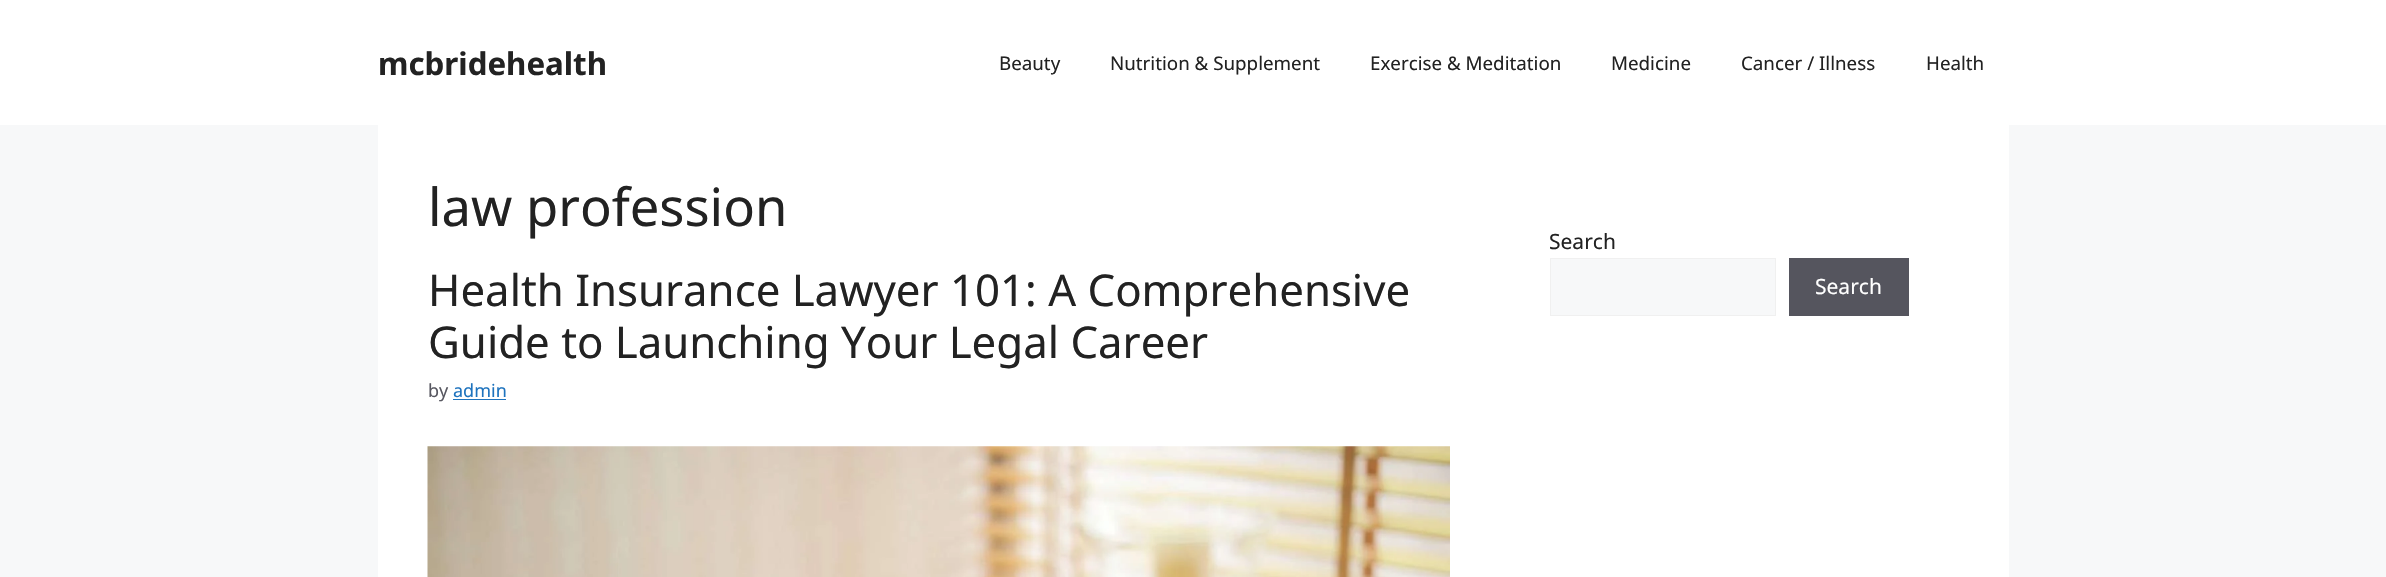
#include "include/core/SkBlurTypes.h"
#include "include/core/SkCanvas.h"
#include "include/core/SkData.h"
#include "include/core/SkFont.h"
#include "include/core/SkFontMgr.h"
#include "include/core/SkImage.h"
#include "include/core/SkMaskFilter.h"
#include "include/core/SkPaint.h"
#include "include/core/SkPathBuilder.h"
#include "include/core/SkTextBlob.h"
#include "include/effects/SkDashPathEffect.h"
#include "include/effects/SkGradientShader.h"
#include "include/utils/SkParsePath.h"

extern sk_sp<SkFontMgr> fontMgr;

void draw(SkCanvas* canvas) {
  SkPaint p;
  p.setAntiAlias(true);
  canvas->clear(SkColorSetRGB(247, 248, 249));
  p.setColor(SK_ColorWHITE);
  canvas->drawRect(SkRect::MakeLTRB(0, 0, 2386, 125), p);
  canvas->drawRect(SkRect::MakeLTRB(378, 125, 2009, 577), p);
  p.setColor(SkColorSetRGB(30, 115, 190));
  canvas->drawRect(SkRect::MakeLTRB(453, 399, 506, 400), p);
  canvas->drawImageRect(SkImages::DeferredFromEncodedData(SkData::MakeFromFileName("images/1.png")), SkRect::MakeLTRB(427, 446, 1450, 577), SkSamplingOptions());
  p.setColor(SkColorSetRGB(247, 248, 249));
  canvas->drawRect(SkRect::MakeLTRB(1550.5f, 258.5f, 1775.5f, 315.5f), p);
  p.setStyle(SkPaint::kStroke_Style);
  p.setStrokeWidth(1);
  p.setColor(SkColorSetRGB(240, 240, 240));
  canvas->drawRect(SkRect::MakeLTRB(1550.5f, 258.5f, 1775.5f, 315.5f), p);
  p.setStyle(SkPaint::kFill_Style);
  p.setColor(SkColorSetRGB(85, 85, 94));
  canvas->drawRect(SkRect::MakeLTRB(1789, 258, 1909, 316), p);
  SkFont font1(fontMgr->matchFamilyStyle("Noto Sans", SkFontStyle::Bold()), 31.25f);
  font1.setSubpixel(true);
  p.setColor(SkColorSetRGB(34, 34, 34));
  canvas->drawString("mcbridehealth", 378, 75, font1, p);
  SkFont font2(fontMgr->matchFamilyStyle("Noto Sans", SkFontStyle::Normal()), 18.75f);
  font2.setSubpixel(true);
  canvas->drawString("Beauty", 999, 70, font2, p);
  canvas->drawString("Nutrition & Supplement", 1110, 70, font2, p);
  canvas->drawString("Exercise & Meditation", 1370, 70, font2, p);
  canvas->drawString("Medicine", 1611, 70, font2, p);
  canvas->drawString("Cancer / Illness", 1741, 70, font2, p);
  canvas->drawString("Health", 1926, 70, font2, p);
  SkFont font3(fontMgr->matchFamilyStyle("Noto Sans", SkFontStyle::Normal()), 52.5f);
  font3.setSubpixel(true);
  canvas->drawString("law profession", 428, 226, font3, p);
  SkFont font4(fontMgr->matchFamilyStyle("Noto Sans", SkFontStyle::Normal()), 43.75f);
  font4.setSubpixel(true);
  canvas->drawString("Health Insurance Lawyer 101: A Comprehensive", 428, 306, font4, p);
  canvas->drawString("Guide to Launching Your Legal Career", 428, 358, font4, p);
  SkFont font5(fontMgr->matchFamilyStyle("Noto Sans", SkFontStyle::Normal()), 18);
  font5.setSubpixel(true);
  p.setColor(SkColorSetRGB(87, 87, 96));
  canvas->drawString("by", 428, 397, font5, p);
  p.setColor(SkColorSetRGB(30, 115, 190));
  canvas->drawString("admin", 453, 397, font5, p);
  SkFont font6(fontMgr->matchFamilyStyle("Noto Sans", SkFontStyle::Normal()), 21);
  font6.setSubpixel(true);
  p.setColor(SkColorSetRGB(34, 34, 34));
  canvas->drawString("Search", 1549, 249, font6, p);
  p.setColor(SK_ColorWHITE);
  canvas->drawString("Search", 1815, 294, font6, p);
}
